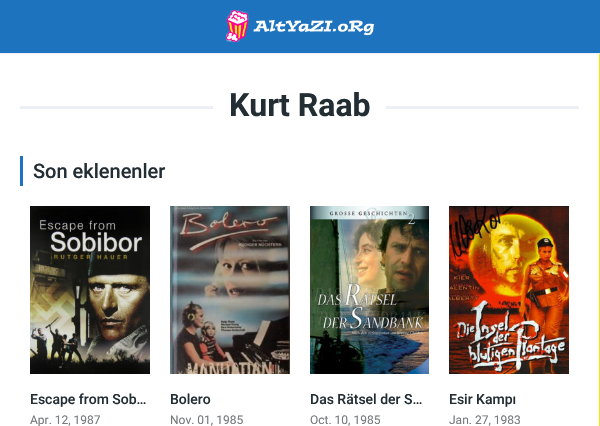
#include "include/core/SkBlurTypes.h"
#include "include/core/SkCanvas.h"
#include "include/core/SkData.h"
#include "include/core/SkFont.h"
#include "include/core/SkFontMgr.h"
#include "include/core/SkImage.h"
#include "include/core/SkMaskFilter.h"
#include "include/core/SkPaint.h"
#include "include/core/SkPathBuilder.h"
#include "include/core/SkTextBlob.h"
#include "include/effects/SkDashPathEffect.h"
#include "include/effects/SkGradientShader.h"
#include "include/utils/SkParsePath.h"

extern sk_sp<SkFontMgr> fontMgr;

void draw(SkCanvas* canvas) {
  SkPaint p;
  p.setAntiAlias(true);
  canvas->clear(SkColorSetRGB(30, 115, 190));
  canvas->drawImageRect(SkImages::DeferredFromEncodedData(SkData::MakeFromFileName("images/1.png")), SkRect::MakeLTRB(226, 10, 374, 42), SkSamplingOptions());
  p.setColor(SK_ColorWHITE);
  canvas->drawRect(SkRect::MakeLTRB(0, 54, 599, 426), p);
  p.setColor(SkColorSetRGB(236, 239, 245));
  canvas->drawRect(SkRect::MakeLTRB(0, 53, 600, 54), p);
  p.setColor(SkColorSetRGB(247, 229, 13));
  canvas->drawRect(SkRect::MakeLTRB(599, 54, 600, 426), p);
  p.setColor(SkColorSetRGB(236, 239, 245));
  canvas->drawRect(SkRect::MakeLTRB(20, 106, 213, 109), p);
  canvas->drawRect(SkRect::MakeLTRB(386, 106, 579, 109), p);
  p.setColor(SkColorSetRGB(30, 115, 190));
  canvas->drawRect(SkRect::MakeLTRB(20, 156, 23, 186), p);
  canvas->drawImageRect(SkImages::DeferredFromEncodedData(SkData::MakeFromFileName("images/2.png")), SkRect::MakeLTRB(30, 206, 150, 374), SkSamplingOptions());
  canvas->drawImageRect(SkImages::DeferredFromEncodedData(SkData::MakeFromFileName("images/3.png")), SkRect::MakeLTRB(170, 206, 290, 374), SkSamplingOptions());
  canvas->drawImageRect(SkImages::DeferredFromEncodedData(SkData::MakeFromFileName("images/4.png")), SkRect::MakeLTRB(310, 206, 429, 374), SkSamplingOptions());
  canvas->drawImageRect(SkImages::DeferredFromEncodedData(SkData::MakeFromFileName("images/5.png")), SkRect::MakeLTRB(449, 206, 569, 374), SkSamplingOptions());
  SkFont font1(fontMgr->matchFamilyStyle("Roboto", SkFontStyle::Bold()), 32);
  font1.setSubpixel(true);
  p.setColor(SkColorSetRGB(34, 45, 52));
  canvas->drawString("Kurt Raab", 229, 116, font1, p);
  SkFont font2(fontMgr->matchFamilyStyle("Roboto", SkFontStyle(500, SkFontStyle::kNormal_Width, SkFontStyle::kUpright_Slant)), 20);
  font2.setSubpixel(true);
  canvas->drawString("Son eklenenler", 33, 178, font2, p);
  SkFont font3(fontMgr->matchFamilyStyle("Roboto", SkFontStyle(500, SkFontStyle::kNormal_Width, SkFontStyle::kUpright_Slant)), 14);
  font3.setSubpixel(true);
  canvas->drawString("Escape from Sob…", 30, 404, font3, p);
  SkFont font4(fontMgr->matchFamilyStyle("Roboto", SkFontStyle::Normal()), 12);
  font4.setSubpixel(true);
  p.setColor(SkColorSetRGB(117, 122, 125));
  canvas->drawString("Apr. 12, 1987", 30, 424, font4, p);
  p.setColor(SkColorSetRGB(34, 45, 52));
  canvas->drawString("Bolero", 170, 404, font3, p);
  p.setColor(SkColorSetRGB(117, 122, 125));
  canvas->drawString("Nov. 01, 1985", 170, 424, font4, p);
  p.setColor(SkColorSetRGB(34, 45, 52));
  canvas->drawString("Das Rätsel der S…", 310, 404, font3, p);
  p.setColor(SkColorSetRGB(117, 122, 125));
  canvas->drawString("Oct. 10, 1985", 310, 424, font4, p);
  p.setColor(SkColorSetRGB(34, 45, 52));
  canvas->drawString("Esir Kampı", 449, 404, font3, p);
  p.setColor(SkColorSetRGB(117, 122, 125));
  canvas->drawString("Jan. 27, 1983", 449, 424, font4, p);
}
